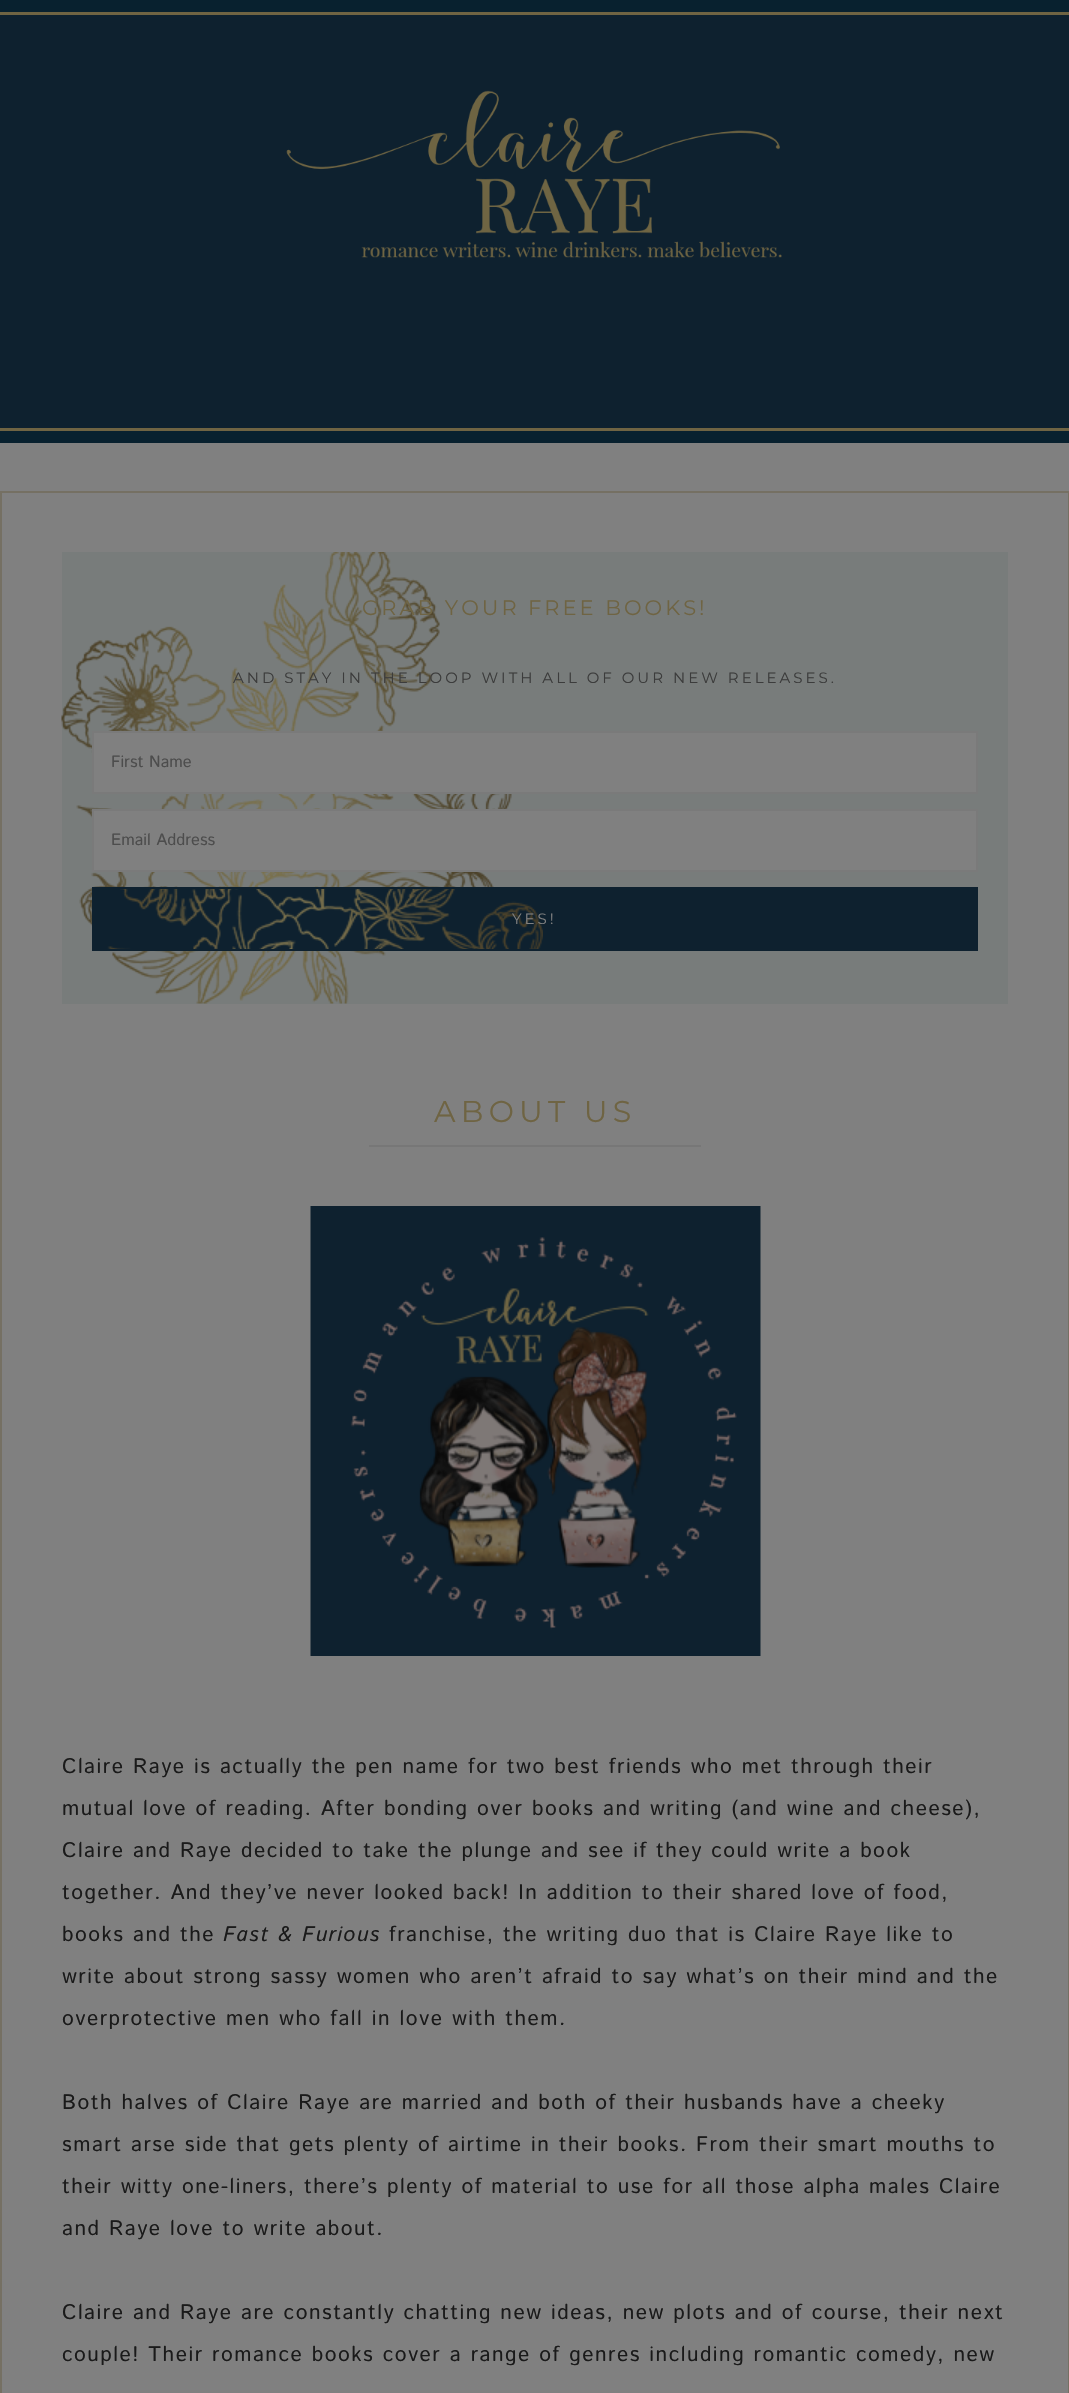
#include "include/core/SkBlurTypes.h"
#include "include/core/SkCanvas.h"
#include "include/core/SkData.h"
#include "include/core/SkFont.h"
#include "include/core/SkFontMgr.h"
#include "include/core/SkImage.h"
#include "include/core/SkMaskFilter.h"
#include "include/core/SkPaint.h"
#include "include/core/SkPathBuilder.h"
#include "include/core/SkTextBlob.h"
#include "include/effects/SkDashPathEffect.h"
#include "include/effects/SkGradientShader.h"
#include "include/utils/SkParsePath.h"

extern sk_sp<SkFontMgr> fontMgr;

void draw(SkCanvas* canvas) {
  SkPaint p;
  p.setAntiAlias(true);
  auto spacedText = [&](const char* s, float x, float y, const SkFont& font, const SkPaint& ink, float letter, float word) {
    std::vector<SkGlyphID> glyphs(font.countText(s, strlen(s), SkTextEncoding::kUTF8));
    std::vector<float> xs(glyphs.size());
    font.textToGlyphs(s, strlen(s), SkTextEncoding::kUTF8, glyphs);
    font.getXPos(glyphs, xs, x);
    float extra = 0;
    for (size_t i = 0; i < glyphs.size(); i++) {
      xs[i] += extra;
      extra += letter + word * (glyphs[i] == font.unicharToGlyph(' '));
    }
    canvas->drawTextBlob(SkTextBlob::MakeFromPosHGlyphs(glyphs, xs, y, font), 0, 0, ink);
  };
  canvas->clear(SkColorSetRGB(128, 128, 128));
  p.setColor(SkColorSetRGB(14, 33, 47));
  canvas->drawRect(SkRect::MakeLTRB(0, 15, 1069, 428), p);
  p.setColor(SkColorSetRGB(111, 100, 67));
  canvas->drawRect(SkRect::MakeLTRB(0, 12, 1069, 15), p);
  canvas->drawRect(SkRect::MakeLTRB(0, 428, 1069, 431), p);
  canvas->drawImageRect(SkImages::DeferredFromEncodedData(SkData::MakeFromFileName("images/1.png")), SkRect::MakeLTRB(286, 90, 782, 258), SkSamplingOptions());
  p.setStyle(SkPaint::kStroke_Style);
  p.setStrokeWidth(12);
  p.setColor(SkColorSetRGB(8, 33, 47));
  canvas->drawRect(SkRect::MakeLTRB(-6, 6, 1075, 437), p);
  p.setStrokeWidth(2);
  p.setColor(SkColorSetRGB(117, 112, 99));
  canvas->drawRect(SkRect::MakeLTRB(1, 492, 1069, 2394), p);
  p.setStyle(SkPaint::kFill_Style);
  p.setColor(SkColorSetRGB(120, 124, 123));
  canvas->drawRect(SkRect::MakeLTRB(62, 552, 1008, 1004), p);
  canvas->drawImageRect(SkImages::DeferredFromEncodedData(SkData::MakeFromFileName("images/2.png")), SkRect::MakeLTRB(61, 552, 512, 1004), SkSamplingOptions());
  p.setColor(SkColorSetRGB(128, 128, 128));
  canvas->drawRect(SkRect::MakeLTRB(93, 732, 977, 793), p);
  p.setStyle(SkPaint::kStroke_Style);
  p.setColor(SkColorSetRGB(122, 122, 122));
  canvas->drawRect(SkRect::MakeLTRB(93, 732, 977, 793), p);
  p.setStyle(SkPaint::kFill_Style);
  p.setColor(SkColorSetRGB(128, 128, 128));
  canvas->drawRect(SkRect::MakeLTRB(93, 810, 977, 871), p);
  p.setStyle(SkPaint::kStroke_Style);
  p.setColor(SkColorSetRGB(122, 122, 122));
  canvas->drawRect(SkRect::MakeLTRB(93, 810, 977, 871), p);
  p.setStyle(SkPaint::kFill_Style);
  p.setColor(SkColorSetRGB(14, 33, 47));
  canvas->drawRect(SkRect::MakeLTRB(94, 889, 976, 949), p);
  canvas->drawImageRect(SkImages::DeferredFromEncodedData(SkData::MakeFromFileName("images/3.png")), SkRect::MakeLTRB(107, 886, 543, 949), SkSamplingOptions());
  p.setStyle(SkPaint::kStroke_Style);
  canvas->drawRect(SkRect::MakeLTRB(93, 888, 977, 950), p);
  p.setStyle(SkPaint::kFill_Style);
  p.setColor(SkColorSetRGB(119, 119, 119));
  canvas->drawRect(SkRect::MakeLTRB(369, 1145, 701, 1147), p);
  canvas->drawImageRect(SkImages::DeferredFromEncodedData(SkData::MakeFromFileName("images/4.png")), SkRect::MakeLTRB(310, 1206, 761, 1656), SkSamplingOptions());
  SkFont font1(fontMgr->matchFamilyStyle("Montserrat", SkFontStyle::Normal()), 21);
  font1.setSubpixel(true);
  p.setColor(SkColorSetRGB(111, 100, 67));
  spacedText("GRAB YOUR FREE BOOKS!", 362, 615, font1, p, 3, 0);
  SkFont font2(fontMgr->matchFamilyStyle("Montserrat", SkFontStyle::Normal()), 15);
  font2.setSubpixel(true);
  p.setColor(SkColorSetRGB(60, 60, 60));
  spacedText("AND STAY IN THE LOOP WITH ALL OF OUR NEW RELEASES.", 233, 683, font2, p, 3, 0);
  SkFont font3(fontMgr->matchFamilyStyle("Istok Web", SkFontStyle::Normal()), 16.5f);
  font3.setSubpixel(true);
  p.setColor(SkColorSetRGB(77, 77, 77));
  canvas->drawString("First Name", 111, 767, font3, p);
  canvas->drawString("Email Address", 111, 845, font3, p);
  p.setColor(SkColorSetRGB(128, 128, 128));
  spacedText("YES!", 512, 924, font2, p, 3, 0);
  SkFont font4(fontMgr->matchFamilyStyle("Montserrat", SkFontStyle::Normal()), 30);
  font4.setSubpixel(true);
  p.setColor(SkColorSetRGB(111, 100, 67));
  spacedText("ABOUT US", 434, 1122, font4, p, 5.25f, 0);
  SkFont font5(fontMgr->matchFamilyStyle("Istok Web", SkFontStyle::Normal()), 21);
  font5.setSubpixel(true);
  p.setColor(SkColorSetRGB(26, 26, 26));
  spacedText("Claire Raye is actually the pen name for two best friends who met through their", 62, 1773, font5, p, 1.5f, 0);
  spacedText("mutual love of reading. After bonding over books and writing (and wine and cheese),", 62, 1815, font5, p, 1.5f, 0);
  spacedText("Claire and Raye decided to take the plunge and see if they could write a book", 62, 1857, font5, p, 1.5f, 0);
  spacedText("together. And they’ve never looked back! In addition to their shared love of food,", 62, 1899, font5, p, 1.5f, 0);
  spacedText("books and the", 62, 1941, font5, p, 1.5f, 0);
  SkFont font6(fontMgr->matchFamilyStyle("Istok Web", SkFontStyle::Italic()), 21);
  font6.setSubpixel(true);
  spacedText("Fast & Furious", 223, 1941, font6, p, 1.5f, 0);
  spacedText("franchise, the writing duo that is Claire Raye like to", 389, 1941, font5, p, 1.5f, 0);
  spacedText("write about strong sassy women who aren’t afraid to say what’s on their mind and the", 62, 1983, font5, p, 1.5f, 0);
  spacedText("overprotective men who fall in love with them.", 62, 2025, font5, p, 1.5f, 0);
  spacedText("Both halves of Claire Raye are married and both of their husbands have a cheeky", 62, 2109, font5, p, 1.5f, 0);
  spacedText("smart arse side that gets plenty of airtime in their books. From their smart mouths to", 62, 2151, font5, p, 1.5f, 0);
  spacedText("their witty one-liners, there’s plenty of material to use for all those alpha males Claire", 62, 2193, font5, p, 1.5f, 0);
  spacedText("and Raye love to write about.", 62, 2235, font5, p, 1.5f, 0);
  spacedText("Claire and Raye are constantly chatting new ideas, new plots and of course, their next", 62, 2319, font5, p, 1.5f, 0);
  spacedText("couple! Their romance books cover a range of genres including romantic comedy, new", 62, 2361, font5, p, 1.5f, 0);
}
